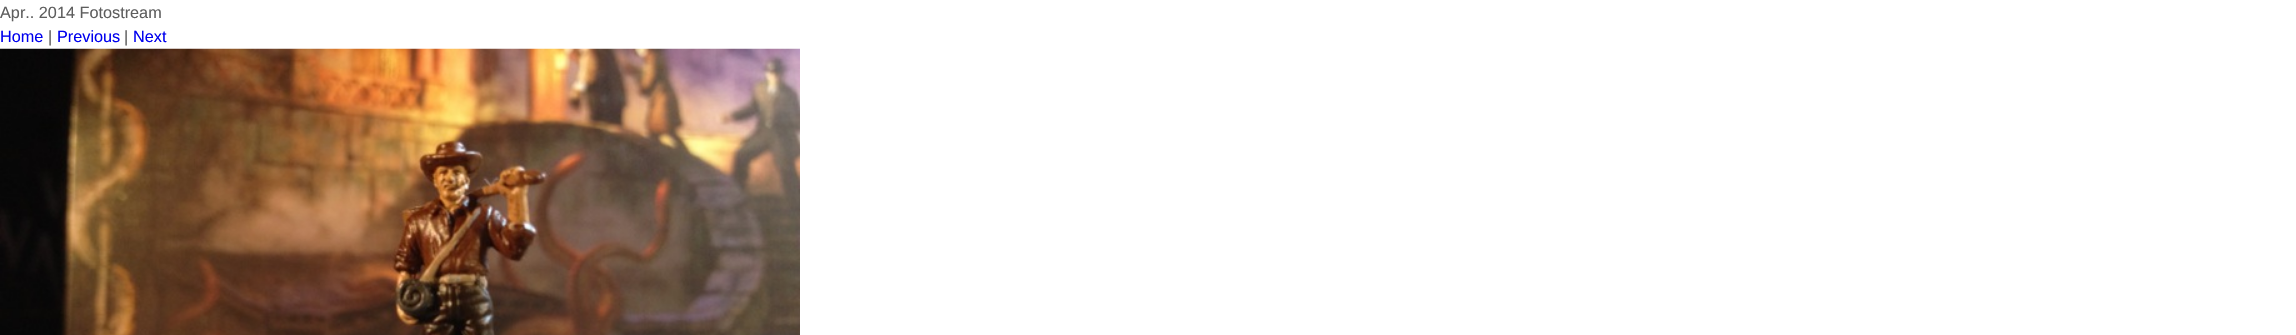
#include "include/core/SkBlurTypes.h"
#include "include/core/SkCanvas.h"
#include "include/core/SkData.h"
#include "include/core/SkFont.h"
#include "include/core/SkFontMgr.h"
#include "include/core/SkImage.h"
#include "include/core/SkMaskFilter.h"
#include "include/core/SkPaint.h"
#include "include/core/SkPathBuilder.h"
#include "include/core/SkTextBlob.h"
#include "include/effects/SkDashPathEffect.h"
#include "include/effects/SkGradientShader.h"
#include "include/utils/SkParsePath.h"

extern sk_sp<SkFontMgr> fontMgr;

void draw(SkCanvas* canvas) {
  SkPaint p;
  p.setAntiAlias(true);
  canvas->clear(SK_ColorWHITE);
  canvas->drawImageRect(SkImages::DeferredFromEncodedData(SkData::MakeFromFileName("images/1.png")), SkRect::MakeLTRB(0, 48, 800, 335), SkSamplingOptions());
  SkFont font1(fontMgr->matchFamilyStyle("Liberation Sans", SkFontStyle::Normal()), 16.25f);
  font1.setSubpixel(true);
  p.setColor(SkColorSetRGB(94, 94, 94));
  canvas->drawString("Apr.. 2014 Fotostream", 0, 18, font1, p);
  p.setColor(SkColorSetRGB(0, 0, 238));
  canvas->drawString("Home", 0, 42, font1, p);
  p.setColor(SkColorSetRGB(94, 94, 94));
  canvas->drawString("|", 48, 42, font1, p);
  p.setColor(SkColorSetRGB(0, 0, 238));
  canvas->drawString("Previous", 57, 42, font1, p);
  p.setColor(SkColorSetRGB(94, 94, 94));
  canvas->drawString("|", 124, 42, font1, p);
  p.setColor(SkColorSetRGB(0, 0, 238));
  canvas->drawString("Next", 133, 42, font1, p);
}
